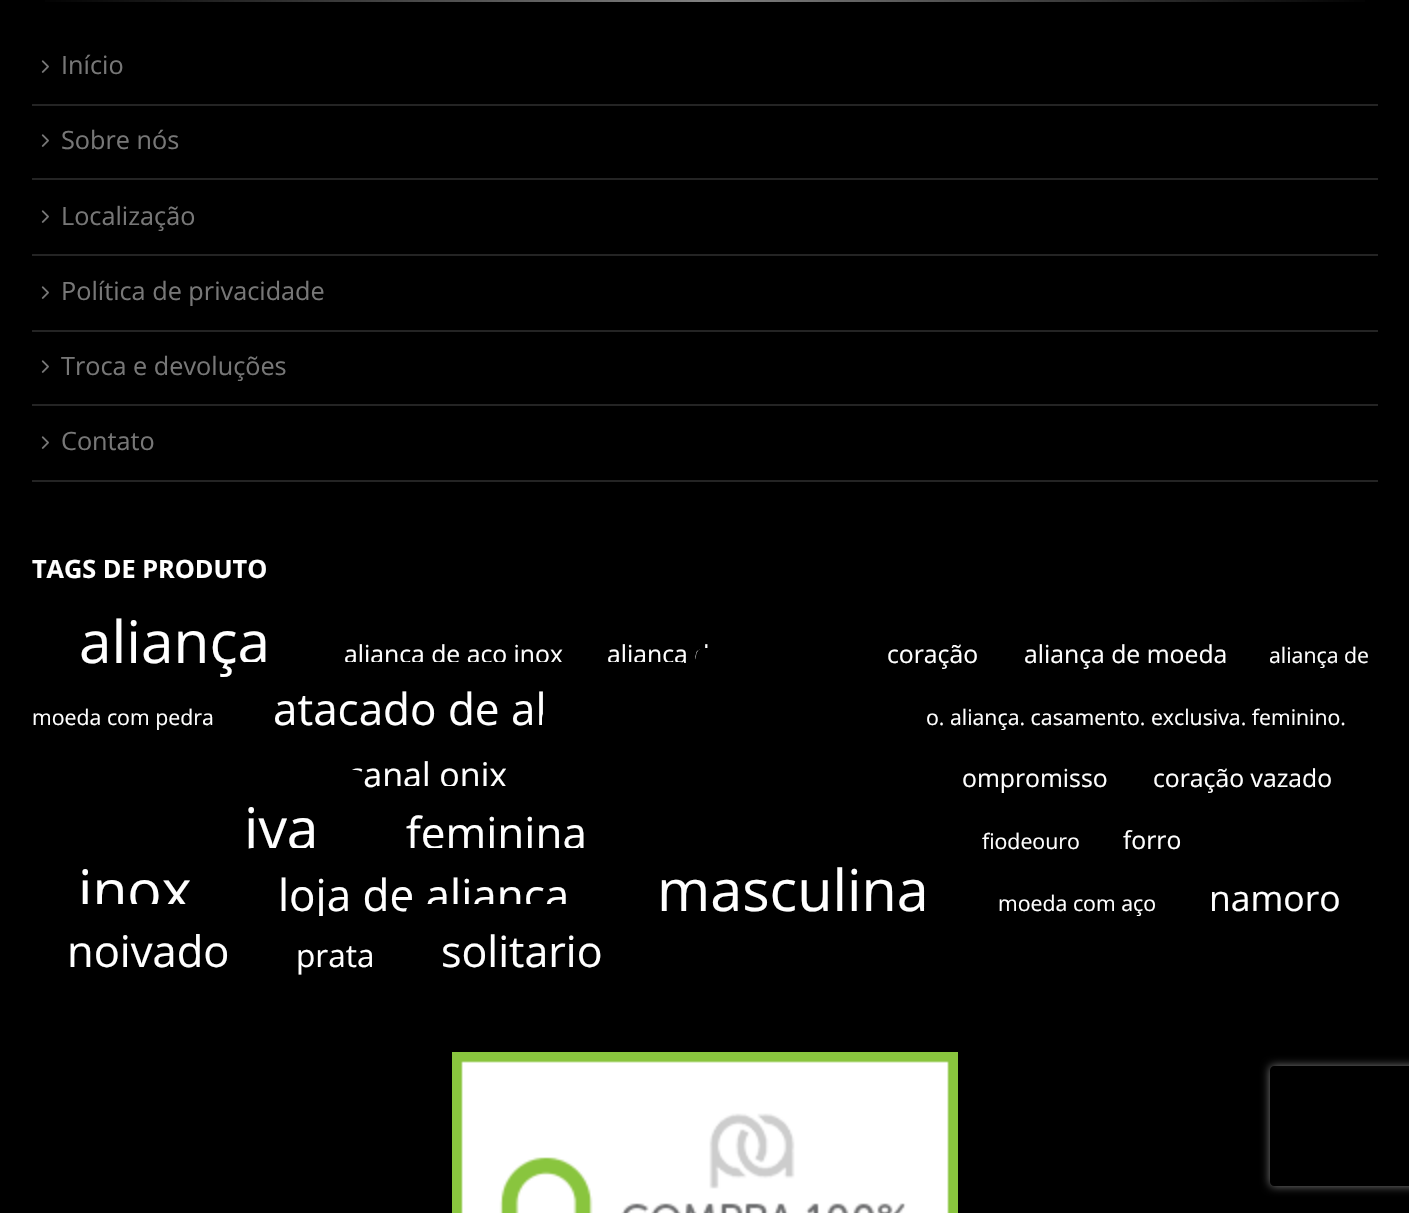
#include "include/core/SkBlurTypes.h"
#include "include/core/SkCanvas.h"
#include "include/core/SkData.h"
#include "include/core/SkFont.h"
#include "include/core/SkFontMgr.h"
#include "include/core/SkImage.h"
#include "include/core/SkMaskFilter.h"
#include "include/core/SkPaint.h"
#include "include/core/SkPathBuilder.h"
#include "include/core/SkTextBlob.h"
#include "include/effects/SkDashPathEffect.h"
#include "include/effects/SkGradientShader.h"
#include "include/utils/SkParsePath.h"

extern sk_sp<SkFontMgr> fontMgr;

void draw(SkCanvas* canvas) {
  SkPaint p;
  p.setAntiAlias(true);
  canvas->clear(SK_ColorBLACK);
  {
    const SkColor colors[] = {SK_ColorBLACK, SkColorSetRGB(128, 128, 128), SK_ColorBLACK};
    const float stops[] = {0, 0.5f, 1};
    const SkPoint ends[] = {{32, 1}, {1378, 1}};
    p.setShader(SkGradientShader::MakeLinear(ends, colors, stops, 3, SkTileMode::kClamp));
    p.setAlpha(255);
  }
  canvas->drawRect(SkRect::MakeLTRB(45, 0, 1365, 2), p);
  p.setShader(nullptr);
  p.setColor(SkColorSetRGB(36, 36, 36));
  canvas->drawRect(SkRect::MakeLTRB(32, 480, 1378, 482), p);
  canvas->drawImageRect(SkImages::DeferredFromEncodedData(SkData::MakeFromFileName("images/1.png")), SkRect::MakeLTRB(41, 60, 49, 73), SkSamplingOptions());
  canvas->drawRect(SkRect::MakeLTRB(32, 104, 1378, 106), p);
  canvas->drawImageRect(SkImages::DeferredFromEncodedData(SkData::MakeFromFileName("images/1.png")), SkRect::MakeLTRB(41, 134, 49, 147), SkSamplingOptions());
  canvas->drawRect(SkRect::MakeLTRB(32, 178, 1378, 180), p);
  canvas->drawImageRect(SkImages::DeferredFromEncodedData(SkData::MakeFromFileName("images/1.png")), SkRect::MakeLTRB(41, 210, 49, 223), SkSamplingOptions());
  canvas->drawRect(SkRect::MakeLTRB(32, 254, 1378, 256), p);
  canvas->drawImageRect(SkImages::DeferredFromEncodedData(SkData::MakeFromFileName("images/1.png")), SkRect::MakeLTRB(41, 286, 49, 299), SkSamplingOptions());
  canvas->drawRect(SkRect::MakeLTRB(32, 330, 1378, 332), p);
  canvas->drawImageRect(SkImages::DeferredFromEncodedData(SkData::MakeFromFileName("images/1.png")), SkRect::MakeLTRB(41, 360, 49, 373), SkSamplingOptions());
  canvas->drawRect(SkRect::MakeLTRB(32, 404, 1378, 406), p);
  canvas->drawImageRect(SkImages::DeferredFromEncodedData(SkData::MakeFromFileName("images/1.png")), SkRect::MakeLTRB(41, 436, 49, 449), SkSamplingOptions());
  canvas->drawImageRect(SkImages::DeferredFromEncodedData(SkData::MakeFromFileName("images/2.png")), SkRect::MakeLTRB(452, 1052, 958, 1213), SkSamplingOptions());
  canvas->save();
  canvas->clipPath(SkPathBuilder(SkPathFillType::kEvenOdd).moveTo(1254, 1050).lineTo(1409, 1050).lineTo(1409, 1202).lineTo(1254, 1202).close().moveTo(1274, 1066).lineTo(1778, 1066).cubicTo(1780, 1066, 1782, 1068, 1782, 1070).lineTo(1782, 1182).cubicTo(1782, 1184, 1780, 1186, 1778, 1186).lineTo(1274, 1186).cubicTo(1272, 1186, 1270, 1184, 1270, 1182).lineTo(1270, 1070).cubicTo(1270, 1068, 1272, 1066, 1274, 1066).close().detach(), true);
  p.setColor(SkColorSetRGB(128, 128, 128));
  p.setMaskFilter(SkMaskFilter::MakeBlur(kNormal_SkBlurStyle, 5));
  canvas->drawRoundRect(SkRect::MakeLTRB(1270, 1066, 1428, 1186), 4, 4, p);
  p.setMaskFilter(nullptr);
  canvas->restore();
  SkFont font1(fontMgr->matchFamilyStyle("Open Sans", SkFontStyle::Normal()), 25.25f);
  font1.setSubpixel(true);
  p.setColor(SkColorSetRGB(119, 119, 119));
  canvas->drawString("Início", 61, 74, font1, p);
  canvas->drawString("Sobre nós", 61, 149, font1, p);
  canvas->drawString("Localização", 61, 225, font1, p);
  canvas->drawString("Política de privacidade", 61, 300, font1, p);
  canvas->drawString("Troca e devoluções", 61, 375, font1, p);
  canvas->drawString("Contato", 61, 450, font1, p);
  SkFont font2(fontMgr->matchFamilyStyle("Open Sans", SkFontStyle::Bold()), 25.25f);
  font2.setSubpixel(true);
  p.setColor(SK_ColorWHITE);
  canvas->drawString("TAGS DE PRODUTO", 32, 578, font2, p);
  SkFont font3(fontMgr->matchFamilyStyle("Open Sans", SkFontStyle::Normal()), 58.5f);
  font3.setSubpixel(true);
  canvas->drawString("aliança", 79, 663, font3, p);
  SkFont font4(fontMgr->matchFamilyStyle("Open Sans", SkFontStyle::Normal()), 24.75f);
  font4.setSubpixel(true);
  canvas->drawString("aliança de aço inox", 344, 663, font4, p);
  canvas->drawString("aliança d", 607, 663, font4, p);
  p.setColor(SK_ColorBLACK);
  canvas->drawRoundRect(SkRect::MakeLTRB(696, 648, 880, 756), 8, 8, p);
  p.setColor(SK_ColorWHITE);
  canvas->drawString("coração", 887, 663, font4, p);
  canvas->drawString("aliança de moeda", 1024, 663, font4, p);
  SkFont font5(fontMgr->matchFamilyStyle("Open Sans", SkFontStyle::Normal()), 21.3f);
  font5.setSubpixel(true);
  canvas->drawString("aliança de", 1269, 663, font5, p);
  canvas->drawString("moeda com pedra", 32, 725, font5, p);
  p.setColor(SK_ColorBLACK);
  canvas->drawRoundRect(SkRect::MakeLTRB(238, 662, 688, 752), 8, 8, p);
  SkFont font6(fontMgr->matchFamilyStyle("Open Sans", SkFontStyle::Normal()), 44);
  font6.setSubpixel(true);
  p.setColor(SK_ColorWHITE);
  canvas->drawString("atacado de al", 273, 725, font6, p);
  p.setColor(SK_ColorBLACK);
  canvas->drawRoundRect(SkRect::MakeLTRB(542, 710, 924, 818), 8, 8, p);
  p.setColor(SK_ColorWHITE);
  canvas->drawString("o. aliança. casamento. exclusiva. feminino.", 926, 725, font5, p);
  SkFont font7(fontMgr->matchFamilyStyle("Open Sans", SkFontStyle::Normal()), 34);
  font7.setSubpixel(true);
  canvas->drawString("canal onix", 347, 787, font7, p);
  canvas->drawString("ompromisso", 962, 787, font4, p);
  canvas->drawString("coração vazado", 1153, 787, font4, p);
  p.setColor(SK_ColorBLACK);
  canvas->drawRoundRect(SkRect::MakeLTRB(32, 770, 364, 880), 8, 8, p);
  SkFont font8(fontMgr->matchFamilyStyle("Open Sans", SkFontStyle::Normal()), 57);
  font8.setSubpixel(true);
  p.setColor(SK_ColorWHITE);
  canvas->drawString("iva", 244, 849, font8, p);
  p.setColor(SK_ColorBLACK);
  canvas->drawRoundRect(SkRect::MakeLTRB(370, 786, 622, 876), 8, 8, p);
  p.setColor(SK_ColorWHITE);
  canvas->drawString("feminina", 406, 849, font6, p);
  canvas->drawString("fiodeouro", 982, 849, font5, p);
  canvas->drawString("forro", 1123, 849, font4, p);
  canvas->drawString("inox", 78, 911, font8, p);
  p.setColor(SK_ColorBLACK);
  canvas->drawRoundRect(SkRect::MakeLTRB(244, 848, 604, 938), 8, 8, p);
  p.setColor(SK_ColorWHITE);
  canvas->drawString("loja de aliança", 278, 911, font6, p);
  SkFont font9(fontMgr->matchFamilyStyle("Open Sans", SkFontStyle::Normal()), 57.5f);
  font9.setSubpixel(true);
  canvas->drawString("masculina", 657, 911, font9, p);
  canvas->drawString("moeda com aço", 998, 911, font5, p);
  SkFont font10(fontMgr->matchFamilyStyle("Open Sans", SkFontStyle::Normal()), 35.5f);
  font10.setSubpixel(true);
  canvas->drawString("namoro", 1209, 911, font10, p);
  p.setColor(SK_ColorBLACK);
  canvas->drawRoundRect(SkRect::MakeLTRB(32, 904, 264, 994), 8, 8, p);
  SkFont font11(fontMgr->matchFamilyStyle("Open Sans", SkFontStyle::Normal()), 43.5f);
  font11.setSubpixel(true);
  p.setColor(SK_ColorWHITE);
  canvas->drawString("noivado", 67, 967, font11, p);
  p.setColor(SK_ColorBLACK);
  canvas->drawRoundRect(SkRect::MakeLTRB(272, 916, 400, 992), 8, 8, p);
  SkFont font12(fontMgr->matchFamilyStyle("Open Sans", SkFontStyle::Normal()), 31.5f);
  font12.setSubpixel(true);
  p.setColor(SK_ColorWHITE);
  canvas->drawString("prata", 296, 967, font12, p);
  p.setColor(SK_ColorBLACK);
  canvas->drawRoundRect(SkRect::MakeLTRB(406, 904, 638, 994), 8, 8, p);
  SkFont font13(fontMgr->matchFamilyStyle("Open Sans", SkFontStyle::Normal()), 43);
  font13.setSubpixel(true);
  p.setColor(SK_ColorWHITE);
  canvas->drawString("solitario", 441, 967, font13, p);
}
